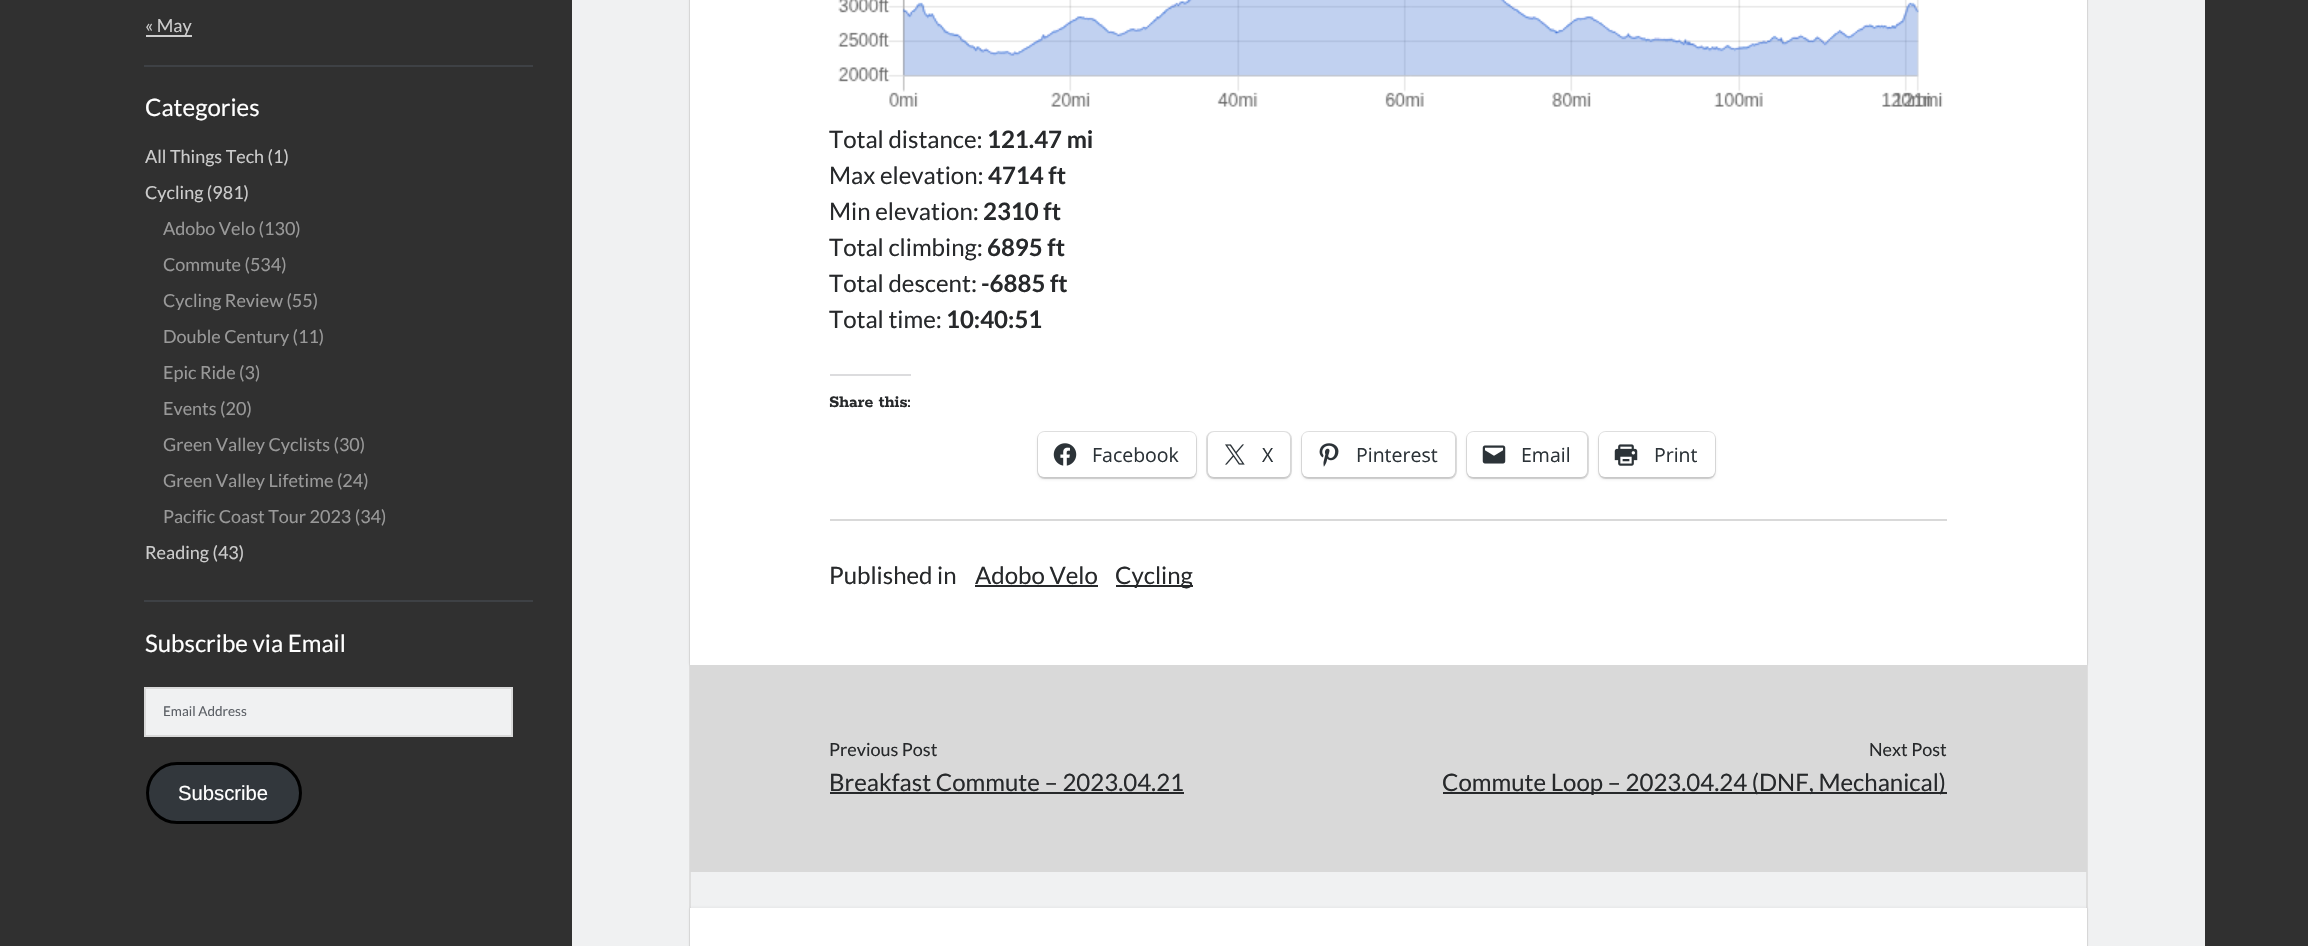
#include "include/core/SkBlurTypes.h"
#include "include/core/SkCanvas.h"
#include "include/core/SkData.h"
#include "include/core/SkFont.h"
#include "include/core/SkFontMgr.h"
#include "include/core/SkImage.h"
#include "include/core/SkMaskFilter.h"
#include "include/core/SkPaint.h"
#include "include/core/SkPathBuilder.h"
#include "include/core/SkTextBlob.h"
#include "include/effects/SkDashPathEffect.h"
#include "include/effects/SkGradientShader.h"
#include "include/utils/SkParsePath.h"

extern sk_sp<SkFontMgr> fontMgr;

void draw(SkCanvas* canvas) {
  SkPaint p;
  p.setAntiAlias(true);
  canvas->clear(SkColorSetRGB(48, 48, 48));
  p.setColor(SkColorSetRGB(204, 204, 204));
  canvas->drawRect(SkRect::MakeLTRB(146, 35, 192, 37), p);
  p.setColor(SkColorSetRGB(62, 65, 69));
  canvas->drawRect(SkRect::MakeLTRB(144, 65, 533, 67), p);
  canvas->drawRect(SkRect::MakeLTRB(144, 600, 533, 602), p);
  p.setColor(SkColorSetRGB(240, 241, 242));
  canvas->drawRect(SkRect::MakeLTRB(146, 689, 511, 735), p);
  p.setStyle(SkPaint::kStroke_Style);
  p.setStrokeWidth(2);
  p.setColor(SkColorSetRGB(217, 217, 217));
  canvas->drawRect(SkRect::MakeLTRB(145, 688, 512, 736), p);
  p.setStyle(SkPaint::kFill_Style);
  p.setColor(SkColorSetRGB(50, 55, 60));
  canvas->drawRoundRect(SkRect::MakeLTRB(147.5f, 763.5f, 300.5f, 822.5f), 29.5f, 29.5f, p);
  p.setStyle(SkPaint::kStroke_Style);
  p.setStrokeWidth(3);
  p.setColor(SK_ColorBLACK);
  canvas->drawRoundRect(SkRect::MakeLTRB(147.5f, 763.5f, 300.5f, 822.5f), 29.5f, 29.5f, p);
  p.setStyle(SkPaint::kFill_Style);
  p.setColor(SkColorSetRGB(240, 241, 242));
  canvas->drawRect(SkRect::MakeLTRB(572, 0, 2205, 946), p);
  p.setStyle(SkPaint::kStroke_Style);
  p.setStrokeWidth(2);
  p.setColor(SkColorSetRGB(222, 222, 222));
  canvas->drawRect(SkRect::MakeLTRB(690, -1, 2087, 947), p);
  p.setStyle(SkPaint::kFill_Style);
  p.setColor(SkColorSetARGB(26, 39, 43, 47));
  p.setMaskFilter(SkMaskFilter::MakeBlur(kNormal_SkBlurStyle, 1.5f));
  canvas->drawRect(SkRect::MakeLTRB(690, -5, 2087, 665), p);
  p.setMaskFilter(nullptr);
  p.setColor(SK_ColorWHITE);
  canvas->drawRect(SkRect::MakeLTRB(690, 0, 2087, 665), p);
  p.setColor(SkColorSetRGB(217, 217, 217));
  canvas->drawRect(SkRect::MakeLTRB(830, 519, 1947, 521), p);
  canvas->drawImageRect(SkImages::DeferredFromEncodedData(SkData::MakeFromFileName("images/1.png")), SkRect::MakeLTRB(838, 0, 1943, 107), SkSamplingOptions());
  p.setColor(SkColorSetRGB(220, 220, 222));
  canvas->drawRect(SkRect::MakeLTRB(830, 374, 911, 376), p);
  p.setStyle(SkPaint::kStroke_Style);
  p.setColor(SkColorSetRGB(224, 224, 224));
  canvas->drawRoundRect(SkRect::MakeLTRB(1038, 432, 1196, 478), 7, 7, p);
  p.setStyle(SkPaint::kFill_Style);
  p.setColor(SkColorSetARGB(31, 0, 0, 0));
  p.setMaskFilter(SkMaskFilter::MakeBlur(kNormal_SkBlurStyle, 1.5f));
  canvas->drawRoundRect(SkRect::MakeLTRB(1038, 434, 1196, 479), 6, 6, p);
  p.setMaskFilter(nullptr);
  p.setColor(SK_ColorWHITE);
  canvas->drawRoundRect(SkRect::MakeLTRB(1038, 432, 1196, 477), 6, 6, p);
  canvas->drawImageRect(SkImages::DeferredFromEncodedData(SkData::MakeFromFileName("images/2.png")), SkRect::MakeLTRB(1053, 443, 1077, 466), SkSamplingOptions());
  p.setStyle(SkPaint::kStroke_Style);
  p.setColor(SkColorSetRGB(224, 224, 224));
  canvas->drawRoundRect(SkRect::MakeLTRB(1207, 432, 1291, 478), 7, 7, p);
  p.setStyle(SkPaint::kFill_Style);
  p.setColor(SkColorSetARGB(31, 0, 0, 0));
  p.setMaskFilter(SkMaskFilter::MakeBlur(kNormal_SkBlurStyle, 1.5f));
  canvas->drawRoundRect(SkRect::MakeLTRB(1208, 434, 1290, 479), 6, 6, p);
  p.setMaskFilter(nullptr);
  p.setColor(SK_ColorWHITE);
  canvas->drawRoundRect(SkRect::MakeLTRB(1208, 432, 1290, 477), 6, 6, p);
  canvas->drawImageRect(SkImages::DeferredFromEncodedData(SkData::MakeFromFileName("images/3.png")), SkRect::MakeLTRB(1225, 444, 1245, 465), SkSamplingOptions());
  p.setStyle(SkPaint::kStroke_Style);
  p.setColor(SkColorSetRGB(224, 224, 224));
  canvas->drawRoundRect(SkRect::MakeLTRB(1302, 432, 1456, 478), 7, 7, p);
  p.setStyle(SkPaint::kFill_Style);
  p.setColor(SkColorSetARGB(31, 0, 0, 0));
  p.setMaskFilter(SkMaskFilter::MakeBlur(kNormal_SkBlurStyle, 1.5f));
  canvas->drawRoundRect(SkRect::MakeLTRB(1302, 434, 1455, 479), 6, 6, p);
  p.setMaskFilter(nullptr);
  p.setColor(SK_ColorWHITE);
  canvas->drawRoundRect(SkRect::MakeLTRB(1302, 432, 1455, 477), 6, 6, p);
  canvas->drawImageRect(SkImages::DeferredFromEncodedData(SkData::MakeFromFileName("images/4.png")), SkRect::MakeLTRB(1319, 443, 1339, 467), SkSamplingOptions());
  p.setStyle(SkPaint::kStroke_Style);
  p.setColor(SkColorSetRGB(224, 224, 224));
  canvas->drawRoundRect(SkRect::MakeLTRB(1467, 432, 1588, 478), 7, 7, p);
  p.setStyle(SkPaint::kFill_Style);
  p.setColor(SkColorSetARGB(31, 0, 0, 0));
  p.setMaskFilter(SkMaskFilter::MakeBlur(kNormal_SkBlurStyle, 1.5f));
  canvas->drawRoundRect(SkRect::MakeLTRB(1467, 434, 1587, 479), 6, 6, p);
  p.setMaskFilter(nullptr);
  p.setColor(SK_ColorWHITE);
  canvas->drawRoundRect(SkRect::MakeLTRB(1467, 432, 1587, 477), 6, 6, p);
  canvas->drawImageRect(SkImages::DeferredFromEncodedData(SkData::MakeFromFileName("images/5.png")), SkRect::MakeLTRB(1482, 445, 1506, 464), SkSamplingOptions());
  p.setStyle(SkPaint::kStroke_Style);
  p.setColor(SkColorSetRGB(224, 224, 224));
  canvas->drawRoundRect(SkRect::MakeLTRB(1599, 432, 1715, 478), 7, 7, p);
  p.setStyle(SkPaint::kFill_Style);
  p.setColor(SkColorSetARGB(31, 0, 0, 0));
  p.setMaskFilter(SkMaskFilter::MakeBlur(kNormal_SkBlurStyle, 1.5f));
  canvas->drawRoundRect(SkRect::MakeLTRB(1599, 434, 1715, 479), 6, 6, p);
  p.setMaskFilter(nullptr);
  p.setColor(SK_ColorWHITE);
  canvas->drawRoundRect(SkRect::MakeLTRB(1599, 432, 1715, 477), 6, 6, p);
  canvas->drawImageRect(SkImages::DeferredFromEncodedData(SkData::MakeFromFileName("images/6.png")), SkRect::MakeLTRB(1614, 444, 1638, 466), SkSamplingOptions());
  p.setColor(SkColorSetRGB(39, 41, 43));
  canvas->drawRect(SkRect::MakeLTRB(975, 585, 1098, 587), p);
  canvas->drawRect(SkRect::MakeLTRB(1116, 585, 1193, 587), p);
  p.setColor(SkColorSetRGB(217, 217, 217));
  canvas->drawRect(SkRect::MakeLTRB(690, 665, 2087, 872), p);
  p.setColor(SkColorSetRGB(39, 41, 43));
  canvas->drawRect(SkRect::MakeLTRB(830, 792, 1184, 794), p);
  canvas->drawRect(SkRect::MakeLTRB(1443, 792, 1947, 794), p);
  p.setColor(SkColorSetARGB(26, 39, 43, 47));
  p.setMaskFilter(SkMaskFilter::MakeBlur(kNormal_SkBlurStyle, 1.5f));
  canvas->drawRect(SkRect::MakeLTRB(690, 908, 2087, 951), p);
  p.setMaskFilter(nullptr);
  p.setColor(SK_ColorWHITE);
  canvas->drawRect(SkRect::MakeLTRB(690, 908, 2087, 946), p);
  SkFont font1(fontMgr->matchFamilyStyle("Lato", SkFontStyle::Normal()), 18);
  font1.setSubpixel(true);
  p.setColor(SkColorSetRGB(204, 204, 204));
  canvas->drawString("« May", 145, 32, font1, p);
  SkFont font2(fontMgr->matchFamilyStyle("Lato", SkFontStyle::Normal()), 24);
  font2.setSubpixel(true);
  p.setColor(SK_ColorWHITE);
  canvas->drawString("Categories", 145, 116, font2, p);
  p.setColor(SkColorSetRGB(204, 204, 204));
  canvas->drawString("All Things Tech (1)", 145, 163, font1, p);
  canvas->drawString("Cycling (981)", 145, 199, font1, p);
  p.setColor(SkColorSetRGB(153, 153, 153));
  canvas->drawString("Adobo Velo (130)", 163, 235, font1, p);
  canvas->drawString("Commute (534)", 163, 271, font1, p);
  canvas->drawString("Cycling Review (55)", 163, 307, font1, p);
  canvas->drawString("Double Century (11)", 163, 343, font1, p);
  canvas->drawString("Epic Ride (3)", 163, 379, font1, p);
  canvas->drawString("Events (20)", 163, 415, font1, p);
  canvas->drawString("Green Valley Cyclists (30)", 163, 451, font1, p);
  canvas->drawString("Green Valley Lifetime (24)", 163, 487, font1, p);
  canvas->drawString("Pacific Coast Tour 2023 (34)", 163, 523, font1, p);
  p.setColor(SkColorSetRGB(204, 204, 204));
  canvas->drawString("Reading (43)", 145, 559, font1, p);
  p.setColor(SK_ColorWHITE);
  canvas->drawString("Subscribe via Email", 145, 652, font2, p);
  canvas->save();
  canvas->clipRect(SkRect::MakeLTRB(164, 704, 494, 720));
  SkFont font3(fontMgr->matchFamilyStyle("Lato", SkFontStyle::Normal()), 13.5f);
  font3.setSubpixel(true);
  p.setColor(SkColorSetRGB(92, 96, 102));
  canvas->drawString("Email Address", 163, 716, font3, p);
  canvas->restore();
  SkFont font4(fontMgr->matchFamilyStyle("Liberation Sans", SkFontStyle::Normal()), 20.25f);
  font4.setSubpixel(true);
  p.setColor(SK_ColorWHITE);
  canvas->drawString("Subscribe", 178, 800, font4, p);
  p.setColor(SkColorSetRGB(39, 41, 43));
  canvas->drawString("Total distance:", 829, 148, font2, p);
  SkFont font5(fontMgr->matchFamilyStyle("Lato", SkFontStyle::Bold()), 24);
  font5.setSubpixel(true);
  canvas->drawString("121.47 mi", 987, 148, font5, p);
  canvas->drawString("Max elevation:", 829, 184, font2, p);
  canvas->drawString("4714 ft", 988, 184, font5, p);
  canvas->drawString("Min elevation:", 829, 220, font2, p);
  canvas->drawString("2310 ft", 983, 220, font5, p);
  canvas->drawString("Total climbing:", 829, 256, font2, p);
  canvas->drawString("6895 ft", 987, 256, font5, p);
  canvas->drawString("Total descent:", 829, 292, font2, p);
  canvas->drawString("-6885 ft", 981, 292, font5, p);
  canvas->drawString("Total time:", 829, 328, font2, p);
  canvas->drawString("10:40:51", 946, 328, font5, p);
  SkFont font6(fontMgr->matchFamilyStyle("Rokkitt", SkFontStyle::Bold()), 18);
  font6.setSubpixel(true);
  canvas->drawString("Share this:", 829, 407, font6, p);
  SkFont font7(fontMgr->matchFamilyStyle("Open Sans", SkFontStyle::Normal()), 19.5f);
  font7.setSubpixel(true);
  p.setColor(SkColorSetRGB(44, 51, 56));
  canvas->drawString("Facebook", 1092, 462, font7, p);
  canvas->drawString("X", 1262, 462, font7, p);
  canvas->drawString("Pinterest", 1356, 462, font7, p);
  canvas->drawString("Email", 1521, 462, font7, p);
  canvas->drawString("Print", 1654, 462, font7, p);
  p.setColor(SkColorSetRGB(39, 41, 43));
  canvas->drawString("Published in", 829, 584, font2, p);
  canvas->drawString("Adobo Velo", 975, 584, font2, p);
  canvas->drawString("Cycling", 1115, 584, font2, p);
  canvas->drawString("Previous Post", 829, 756, font1, p);
  canvas->drawString("Breakfast Commute – 2023.04.21", 829, 791, font2, p);
  canvas->drawString("Next Post", 1869, 756, font1, p);
  canvas->drawString("Commute Loop – 2023.04.24 (DNF, Mechanical)", 1442, 791, font2, p);
}
